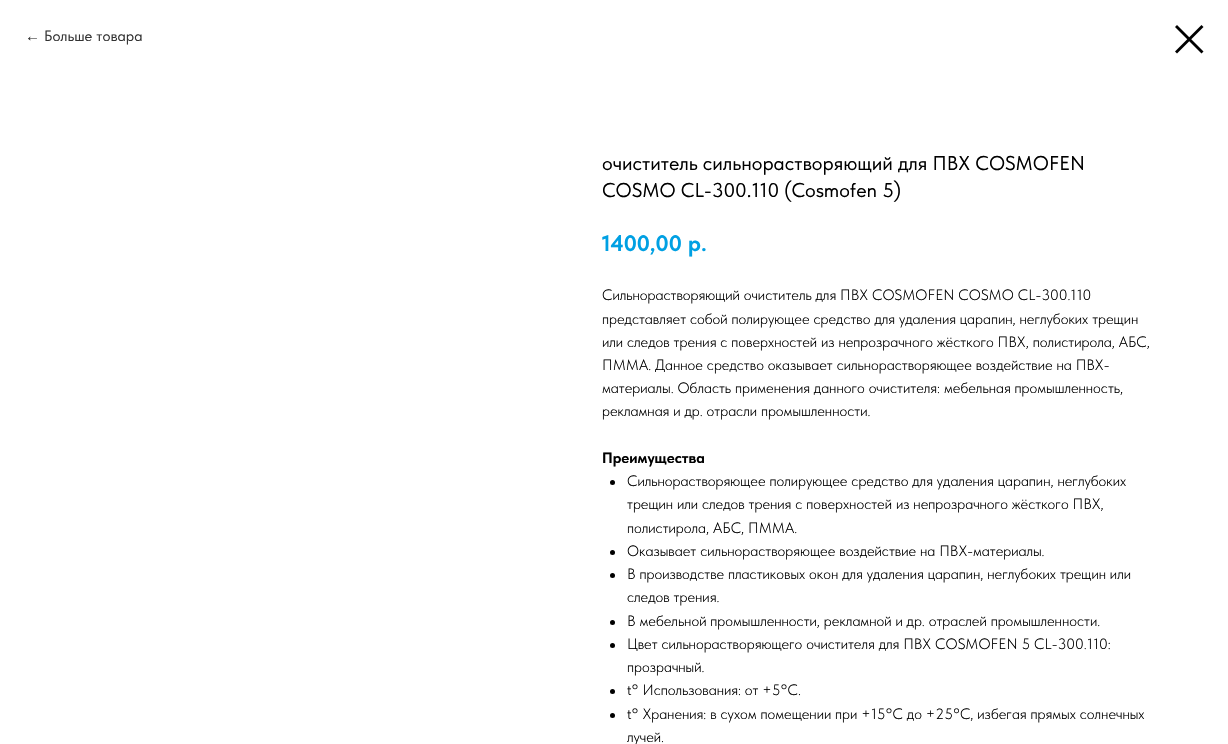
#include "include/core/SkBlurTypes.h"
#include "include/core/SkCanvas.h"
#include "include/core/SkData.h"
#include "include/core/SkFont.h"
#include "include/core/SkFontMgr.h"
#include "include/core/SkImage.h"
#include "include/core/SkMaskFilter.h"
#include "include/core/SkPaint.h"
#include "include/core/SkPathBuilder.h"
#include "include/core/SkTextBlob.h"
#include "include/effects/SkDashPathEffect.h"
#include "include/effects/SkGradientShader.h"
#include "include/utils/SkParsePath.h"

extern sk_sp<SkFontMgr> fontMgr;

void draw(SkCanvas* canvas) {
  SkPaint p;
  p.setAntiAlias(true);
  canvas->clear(SK_ColorWHITE);
  p.setColor(SK_ColorBLACK);
  canvas->drawPath(SkPathBuilder(SkPathFillType::kEvenOdd).moveTo(1175, 27).lineTo(1177, 25).lineTo(1203.5f, 51.5f).lineTo(1201.5f, 53.5f).close().detach(), p);
  canvas->drawPath(SkPathBuilder(SkPathFillType::kEvenOdd).moveTo(1201.5f, 25).lineTo(1203.5f, 27).lineTo(1177, 53.5f).lineTo(1175, 51.5f).close().detach(), p);
  canvas->drawCircle(612.5f, 482.5f, 2.5f, p);
  canvas->drawCircle(612.5f, 552.5f, 2.5f, p);
  canvas->drawCircle(612.5f, 575.5f, 2.5f, p);
  canvas->drawCircle(612.5f, 622.5f, 2.5f, p);
  canvas->drawCircle(612.5f, 645.5f, 2.5f, p);
  canvas->drawCircle(612.5f, 691.5f, 2.5f, p);
  canvas->drawCircle(612.5f, 715.5f, 2.5f, p);
  SkFont font1(fontMgr->matchFamilyStyle("Liberation Sans", SkFontStyle::Normal()), 15);
  font1.setSubpixel(true);
  p.setColor(SkColorSetRGB(51, 51, 51));
  canvas->drawString("←", 25, 41, font1, p);
  SkFont font2(fontMgr->matchFamilyStyle("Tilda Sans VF", SkFontStyle::Normal()), 15);
  font2.setSubpixel(true);
  canvas->drawString("Больше товара", 44, 41, font2, p);
  SkFont font3(fontMgr->matchFamilyStyle("Tilda Sans VF", SkFontStyle::Normal()), 20);
  font3.setSubpixel(true);
  p.setColor(SK_ColorBLACK);
  canvas->drawString("очиститель сильнорастворяющий для ПВХ COSMOFEN", 602, 170, font3, p);
  canvas->drawString("COSMO CL-300.110 (Cosmofen 5)", 602, 197, font3, p);
  SkFont font4(fontMgr->matchFamilyStyle("Tilda Sans VF", SkFontStyle::Bold()), 22.5f);
  font4.setSubpixel(true);
  p.setColor(SkColorSetRGB(0, 160, 227));
  canvas->drawString("1400,00", 602, 251, font4, p);
  canvas->drawString("р.", 688, 251, font4, p);
  SkFont font5(fontMgr->matchFamilyStyle("Tilda Sans VF", SkFontStyle(300, SkFontStyle::kNormal_Width, SkFontStyle::kUpright_Slant)), 15);
  font5.setSubpixel(true);
  p.setColor(SK_ColorBLACK);
  canvas->drawString("Сильнорастворяющий очиститель для ПВХ COSMOFEN COSMO CL-300.110", 602, 300, font5, p);
  canvas->drawString("представляет собой полирующее средство для удаления царапин, неглубоких трещин", 602, 324, font5, p);
  canvas->drawString("или следов трения с поверхностей из непрозрачного жёсткого ПВХ, полистирола, АБС,", 602, 347, font5, p);
  canvas->drawString("ПММА. Данное средство оказывает сильнорастворяющее воздействие на ПВХ-", 602, 370, font5, p);
  canvas->drawString("материалы. Область применения данного очистителя: мебельная промышленность,", 602, 393, font5, p);
  canvas->drawString("рекламная и др. отрасли промышленности.", 602, 416, font5, p);
  SkFont font6(fontMgr->matchFamilyStyle("Tilda Sans VF", SkFontStyle::Bold()), 15);
  font6.setSubpixel(true);
  canvas->drawString("Преимущества", 602, 463, font6, p);
  canvas->drawString("Сильнорастворяющее полирующее средство для удаления царапин, неглубоких", 627, 486, font5, p);
  canvas->drawString("трещин или следов трения с поверхностей из непрозрачного жёсткого ПВХ,", 627, 509, font5, p);
  canvas->drawString("полистирола, АБС, ПММА.", 627, 533, font5, p);
  canvas->drawString("Оказывает сильнорастворяющее воздействие на ПВХ-материалы.", 627, 556, font5, p);
  canvas->drawString("В производстве пластиковых окон для удаления царапин, неглубоких трещин или", 627, 579, font5, p);
  canvas->drawString("следов трения.", 627, 602, font5, p);
  canvas->drawString("В мебельной промышленности, рекламной и др. отраслей промышленности.", 627, 626, font5, p);
  canvas->drawString("Цвет сильнорастворяющего очистителя для ПВХ COSMOFEN 5 CL-300.110:", 627, 649, font5, p);
  canvas->drawString("прозрачный.", 627, 672, font5, p);
  canvas->drawString("t° Использования: от +5°С.", 627, 695, font5, p);
  canvas->drawString("t° Хранения: в сухом помещении при +15°C до +25°C, избегая прямых солнечных", 627, 719, font5, p);
  canvas->drawString("лучей.", 627, 742, font5, p);
}
